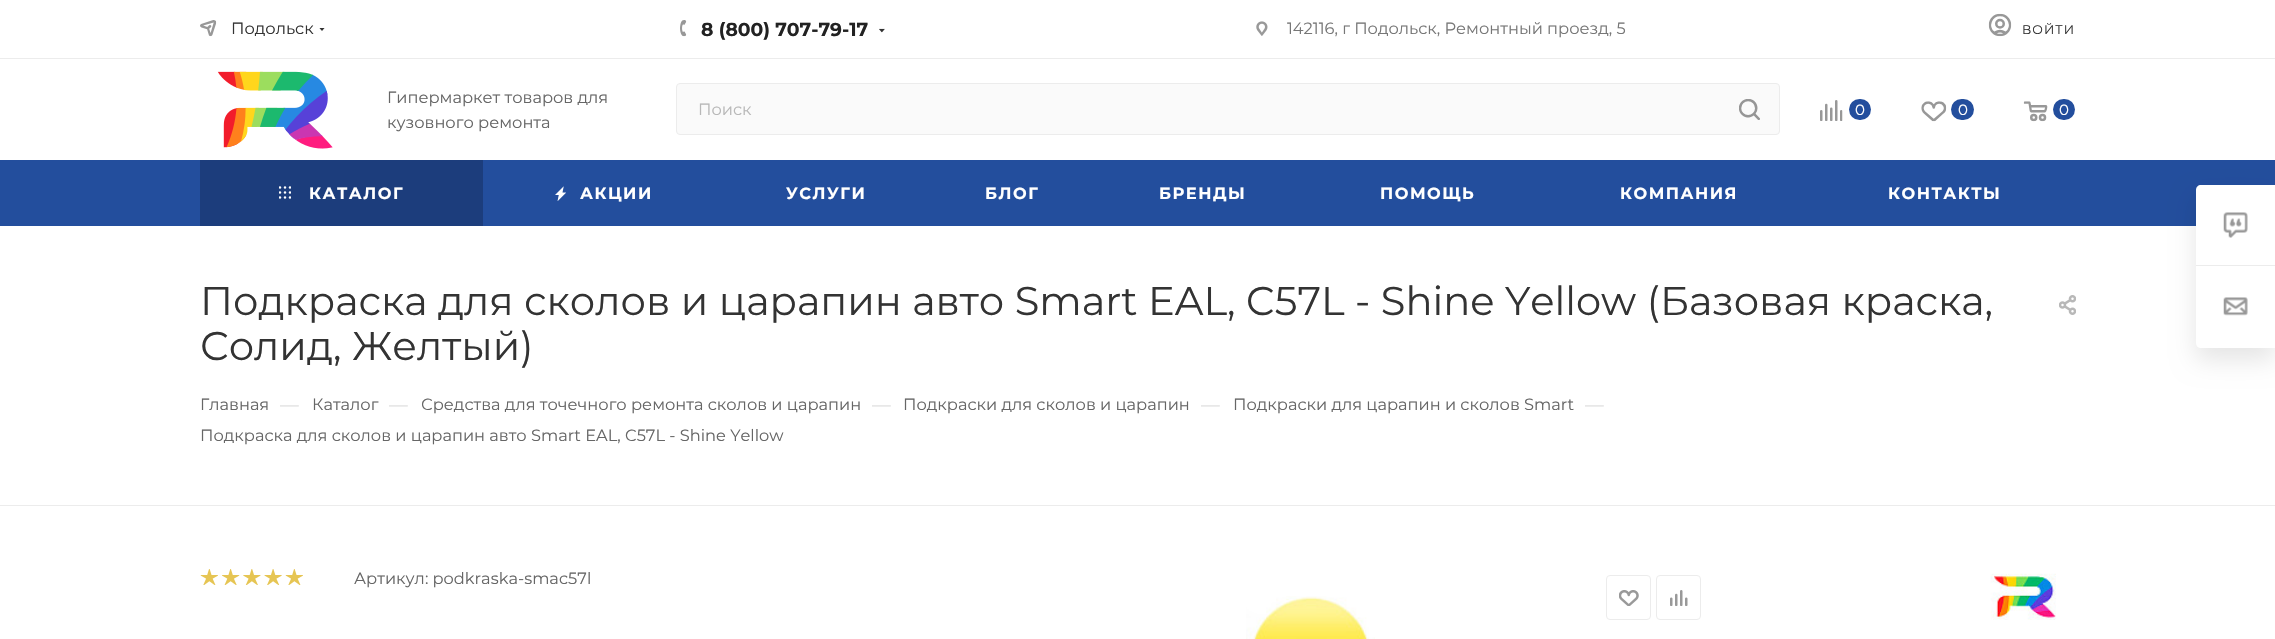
#include "include/core/SkBlurTypes.h"
#include "include/core/SkCanvas.h"
#include "include/core/SkData.h"
#include "include/core/SkFont.h"
#include "include/core/SkFontMgr.h"
#include "include/core/SkImage.h"
#include "include/core/SkMaskFilter.h"
#include "include/core/SkPaint.h"
#include "include/core/SkPathBuilder.h"
#include "include/core/SkTextBlob.h"
#include "include/effects/SkDashPathEffect.h"
#include "include/effects/SkGradientShader.h"
#include "include/utils/SkParsePath.h"

extern sk_sp<SkFontMgr> fontMgr;

void draw(SkCanvas* canvas) {
  SkPaint p;
  p.setAntiAlias(true);
  auto spacedText = [&](const char* s, float x, float y, const SkFont& font, const SkPaint& ink, float letter, float word) {
    std::vector<SkGlyphID> glyphs(font.countText(s, strlen(s), SkTextEncoding::kUTF8));
    std::vector<float> xs(glyphs.size());
    font.textToGlyphs(s, strlen(s), SkTextEncoding::kUTF8, glyphs);
    font.getXPos(glyphs, xs, x);
    float extra = 0;
    for (size_t i = 0; i < glyphs.size(); i++) {
      xs[i] += extra;
      extra += letter + word * (glyphs[i] == font.unicharToGlyph(' '));
    }
    canvas->drawTextBlob(SkTextBlob::MakeFromPosHGlyphs(glyphs, xs, y, font), 0, 0, ink);
  };
  canvas->clear(SK_ColorWHITE);
  p.setColor(SkColorSetRGB(236, 236, 236));
  canvas->drawRect(SkRect::MakeLTRB(0, 58, 2275, 59), p);
  canvas->drawImageRect(SkImages::DeferredFromEncodedData(SkData::MakeFromFileName("images/1.png")), SkRect::MakeLTRB(200, 20, 217, 37), SkSamplingOptions());
  canvas->save();
  canvas->clipRect(SkRect::MakeLTRB(319, 28, 325, 32));
  p.setColor(SkColorSetRGB(51, 51, 51));
  canvas->drawPath(SkPathBuilder(SkPathFillType::kEvenOdd).moveTo(319, 27.5f).lineTo(325, 27.5f).lineTo(322, 31).close().detach(), p);
  canvas->restore();
  canvas->drawImageRect(SkImages::DeferredFromEncodedData(SkData::MakeFromFileName("images/2.png")), SkRect::MakeLTRB(680, 20, 687, 37), SkSamplingOptions());
  canvas->drawImageRect(SkImages::DeferredFromEncodedData(SkData::MakeFromFileName("images/3.png")), SkRect::MakeLTRB(879, 28, 885, 33), SkSamplingOptions());
  canvas->drawImageRect(SkImages::DeferredFromEncodedData(SkData::MakeFromFileName("images/4.png")), SkRect::MakeLTRB(1256, 21, 1268, 36), SkSamplingOptions());
  canvas->drawImageRect(SkImages::DeferredFromEncodedData(SkData::MakeFromFileName("images/5.png")), SkRect::MakeLTRB(1988, 13, 2012, 37), SkSamplingOptions());
  canvas->drawImageRect(SkImages::DeferredFromEncodedData(SkData::MakeFromFileName("images/6.png")), SkRect::MakeLTRB(217, 71, 333, 149), SkSamplingOptions());
  p.setColor(SkColorSetRGB(250, 250, 250));
  canvas->drawRoundRect(SkRect::MakeLTRB(676.5f, 83.5f, 1779.5f, 134.5f), 3.5f, 3.5f, p);
  p.setStyle(SkPaint::kStroke_Style);
  p.setStrokeWidth(1);
  p.setColor(SkColorSetRGB(236, 236, 236));
  canvas->drawRoundRect(SkRect::MakeLTRB(676.5f, 83.5f, 1779.5f, 134.5f), 3.5f, 3.5f, p);
  canvas->drawImageRect(SkImages::DeferredFromEncodedData(SkData::MakeFromFileName("images/7.png")), SkRect::MakeLTRB(1739, 99, 1760, 120), SkSamplingOptions());
  canvas->drawImageRect(SkImages::DeferredFromEncodedData(SkData::MakeFromFileName("images/8.png")), SkRect::MakeLTRB(1820, 100, 1843, 121), SkSamplingOptions());
  p.setStyle(SkPaint::kFill_Style);
  p.setColor(SkColorSetRGB(35, 78, 157));
  canvas->drawRoundRect(SkRect::MakeLTRB(1849, 99, 1871, 120), 10.5f, 10.5f, p);
  canvas->drawImageRect(SkImages::DeferredFromEncodedData(SkData::MakeFromFileName("images/9.png")), SkRect::MakeLTRB(1921, 101, 1947, 122), SkSamplingOptions());
  canvas->drawRoundRect(SkRect::MakeLTRB(1951, 99, 1974, 120), 10.5f, 10.5f, p);
  canvas->drawImageRect(SkImages::DeferredFromEncodedData(SkData::MakeFromFileName("images/10.png")), SkRect::MakeLTRB(2023, 101, 2048, 122), SkSamplingOptions());
  canvas->drawRoundRect(SkRect::MakeLTRB(2053, 99, 2075, 120), 10.5f, 10.5f, p);
  canvas->drawRect(SkRect::MakeLTRB(0, 160, 2275, 226), p);
  p.setColor(SkColorSetRGB(28, 61, 124));
  canvas->drawRect(SkRect::MakeLTRB(200, 160, 483, 226), p);
  canvas->drawImageRect(SkImages::DeferredFromEncodedData(SkData::MakeFromFileName("images/11.png")), SkRect::MakeLTRB(279, 186, 291, 199), SkSamplingOptions());
  canvas->drawImageRect(SkImages::DeferredFromEncodedData(SkData::MakeFromFileName("images/12.png")), SkRect::MakeLTRB(555, 186, 566, 201), SkSamplingOptions());
  canvas->drawImageRect(SkImages::DeferredFromEncodedData(SkData::MakeFromFileName("images/13.png")), SkRect::MakeLTRB(2059, 295, 2076, 315), SkSamplingOptions());
  p.setColor(SkColorSetRGB(236, 236, 236));
  canvas->drawRect(SkRect::MakeLTRB(0, 505, 2275, 506), p);
  canvas->drawImageRect(SkImages::DeferredFromEncodedData(SkData::MakeFromFileName("images/14.png")), SkRect::MakeLTRB(200, 569, 218, 585), SkSamplingOptions());
  canvas->drawImageRect(SkImages::DeferredFromEncodedData(SkData::MakeFromFileName("images/15.png")), SkRect::MakeLTRB(222, 569, 240, 585), SkSamplingOptions());
  canvas->drawImageRect(SkImages::DeferredFromEncodedData(SkData::MakeFromFileName("images/16.png")), SkRect::MakeLTRB(243, 569, 261, 585), SkSamplingOptions());
  canvas->drawImageRect(SkImages::DeferredFromEncodedData(SkData::MakeFromFileName("images/17.png")), SkRect::MakeLTRB(264, 569, 282, 585), SkSamplingOptions());
  canvas->drawImageRect(SkImages::DeferredFromEncodedData(SkData::MakeFromFileName("images/14.png")), SkRect::MakeLTRB(285, 569, 303, 585), SkSamplingOptions());
  canvas->drawImageRect(SkImages::DeferredFromEncodedData(SkData::MakeFromFileName("images/18.png")), SkRect::MakeLTRB(1246, 596, 1375, 639), SkSamplingOptions());
  p.setStyle(SkPaint::kStroke_Style);
  canvas->drawRoundRect(SkRect::MakeLTRB(1606.5f, 575.5f, 1650.5f, 619.5f), 3.5f, 3.5f, p);
  canvas->drawImageRect(SkImages::DeferredFromEncodedData(SkData::MakeFromFileName("images/19.png")), SkRect::MakeLTRB(1619, 590, 1639, 606), SkSamplingOptions());
  canvas->drawRoundRect(SkRect::MakeLTRB(1656.5f, 575.5f, 1700.5f, 619.5f), 3.5f, 3.5f, p);
  canvas->drawImageRect(SkImages::DeferredFromEncodedData(SkData::MakeFromFileName("images/20.png")), SkRect::MakeLTRB(1670, 590, 1688, 606), SkSamplingOptions());
  canvas->drawImageRect(SkImages::DeferredFromEncodedData(SkData::MakeFromFileName("images/21.png")), SkRect::MakeLTRB(1990, 573, 2056, 620), SkSamplingOptions());
  p.setStyle(SkPaint::kFill_Style);
  p.setColor(SkColorSetARGB(26, 0, 0, 0));
  p.setMaskFilter(SkMaskFilter::MakeBlur(kNormal_SkBlurStyle, 12.5f));
  canvas->drawRoundRect(SkRect::MakeLTRB(2196, 198, 2275, 360), 5, 5, p);
  p.setMaskFilter(nullptr);
  p.setColor(SK_ColorWHITE);
  canvas->drawPath(SkPathBuilder().moveTo(2201, 185).lineTo(2275, 185).lineTo(2275, 348).lineTo(2201, 348).cubicTo(2198, 348, 2196, 346, 2196, 343).lineTo(2196, 190).cubicTo(2196, 187, 2198, 185, 2201, 185).close().detach(), p);
  p.setColor(SkColorSetRGB(236, 236, 236));
  canvas->drawRect(SkRect::MakeLTRB(2196, 265, 2275, 266), p);
  canvas->drawImageRect(SkImages::DeferredFromEncodedData(SkData::MakeFromFileName("images/22.png")), SkRect::MakeLTRB(2223, 212, 2248, 238), SkSamplingOptions());
  canvas->drawImageRect(SkImages::DeferredFromEncodedData(SkData::MakeFromFileName("images/23.png")), SkRect::MakeLTRB(2223, 297, 2248, 316), SkSamplingOptions());
  SkFont font1(fontMgr->matchFamilyStyle("Montserrat", SkFontStyle::Normal()), 16.25f);
  font1.setSubpixel(true);
  p.setColor(SkColorSetRGB(51, 51, 51));
  canvas->drawString("Подольск", 231, 34, font1, p);
  SkFont font2(fontMgr->matchFamilyStyle("Montserrat", SkFontStyle::Bold()), 18.75f);
  font2.setSubpixel(true);
  p.setColor(SkColorSetRGB(34, 34, 34));
  canvas->drawString("8 (800) 707-79-17", 701, 36, font2, p);
  p.setColor(SkColorSetRGB(119, 119, 119));
  canvas->drawString("142116, г Подольск, Ремонтный проезд, 5", 1287, 34, font1, p);
  SkFont font3(fontMgr->matchFamilyStyle("Montserrat", SkFontStyle::Normal()), 12.5f);
  font3.setSubpixel(true);
  p.setColor(SkColorSetRGB(51, 51, 51));
  spacedText("ВОЙТИ", 2022, 34, font3, p, 1, 0);
  p.setColor(SkColorSetRGB(102, 102, 102));
  canvas->drawString("Гипермаркет товаров для", 387, 103, font1, p);
  canvas->drawString("кузовного ремонта", 387, 128, font1, p);
  p.setColor(SkColorSetRGB(184, 184, 184));
  canvas->drawString("Поиск", 698, 115, font1, p);
  SkFont font4(fontMgr->matchFamilyStyle("Montserrat", SkFontStyle::Normal()), 15);
  font4.setSubpixel(true);
  p.setColor(SK_ColorWHITE);
  canvas->drawString("0", 1855, 115, font4, p);
  canvas->drawString("0", 1958, 115, font4, p);
  canvas->drawString("0", 2059, 115, font4, p);
  SkFont font5(fontMgr->matchFamilyStyle("Montserrat", SkFontStyle::Bold()), 16.25f);
  font5.setSubpixel(true);
  spacedText("КАТАЛОГ", 309, 199, font5, p, 1.5f, 0);
  spacedText("АКЦИИ", 580, 199, font5, p, 1.5f, 0);
  spacedText("УСЛУГИ", 786, 199, font5, p, 1.5f, 0);
  spacedText("БЛОГ", 985, 199, font5, p, 1.5f, 0);
  spacedText("БРЕНДЫ", 1159, 199, font5, p, 1.5f, 0);
  spacedText("ПОМОЩЬ", 1380, 199, font5, p, 1.5f, 0);
  spacedText("КОМПАНИЯ", 1620, 199, font5, p, 1.5f, 0);
  spacedText("КОНТАКТЫ", 1888, 199, font5, p, 1.5f, 0);
  SkFont font6(fontMgr->matchFamilyStyle("Montserrat", SkFontStyle::Normal()), 40);
  font6.setSubpixel(true);
  p.setColor(SkColorSetRGB(51, 51, 51));
  canvas->drawString("Подкраска для сколов и царапин авто Smart EAL, C57L - Shine Yellow (Базовая краска,", 200, 315, font6, p);
  canvas->drawString("Солид, Желтый)", 200, 360, font6, p);
  p.setColor(SkColorSetRGB(102, 102, 102));
  canvas->drawString("Главная", 200, 410, font1, p);
  SkFont font7(fontMgr->matchFamilyStyle("Montserrat", SkFontStyle::Normal()), 18.75f);
  font7.setSubpixel(true);
  p.setColor(SkColorSetRGB(221, 221, 221));
  canvas->drawString("—", 280, 411, font7, p);
  p.setColor(SkColorSetRGB(102, 102, 102));
  canvas->drawString("Каталог", 312, 410, font1, p);
  p.setColor(SkColorSetRGB(221, 221, 221));
  canvas->drawString("—", 389, 411, font7, p);
  p.setColor(SkColorSetRGB(102, 102, 102));
  canvas->drawString("Средства для точечного ремонта сколов и царапин", 421, 410, font1, p);
  p.setColor(SkColorSetRGB(221, 221, 221));
  canvas->drawString("—", 872, 411, font7, p);
  p.setColor(SkColorSetRGB(102, 102, 102));
  canvas->drawString("Подкраски для сколов и царапин", 903, 410, font1, p);
  p.setColor(SkColorSetRGB(221, 221, 221));
  canvas->drawString("—", 1201, 411, font7, p);
  p.setColor(SkColorSetRGB(102, 102, 102));
  canvas->drawString("Подкраски для царапин и сколов Smart", 1233, 410, font1, p);
  p.setColor(SkColorSetRGB(221, 221, 221));
  canvas->drawString("—", 1585, 411, font7, p);
  p.setColor(SkColorSetRGB(102, 102, 102));
  canvas->drawString("Подкраска для сколов и царапин авто Smart EAL, C57L - Shine Yellow", 200, 441, font1, p);
  canvas->drawString("Артикул: podkraska-smac57l", 354, 584, font1, p);
}
